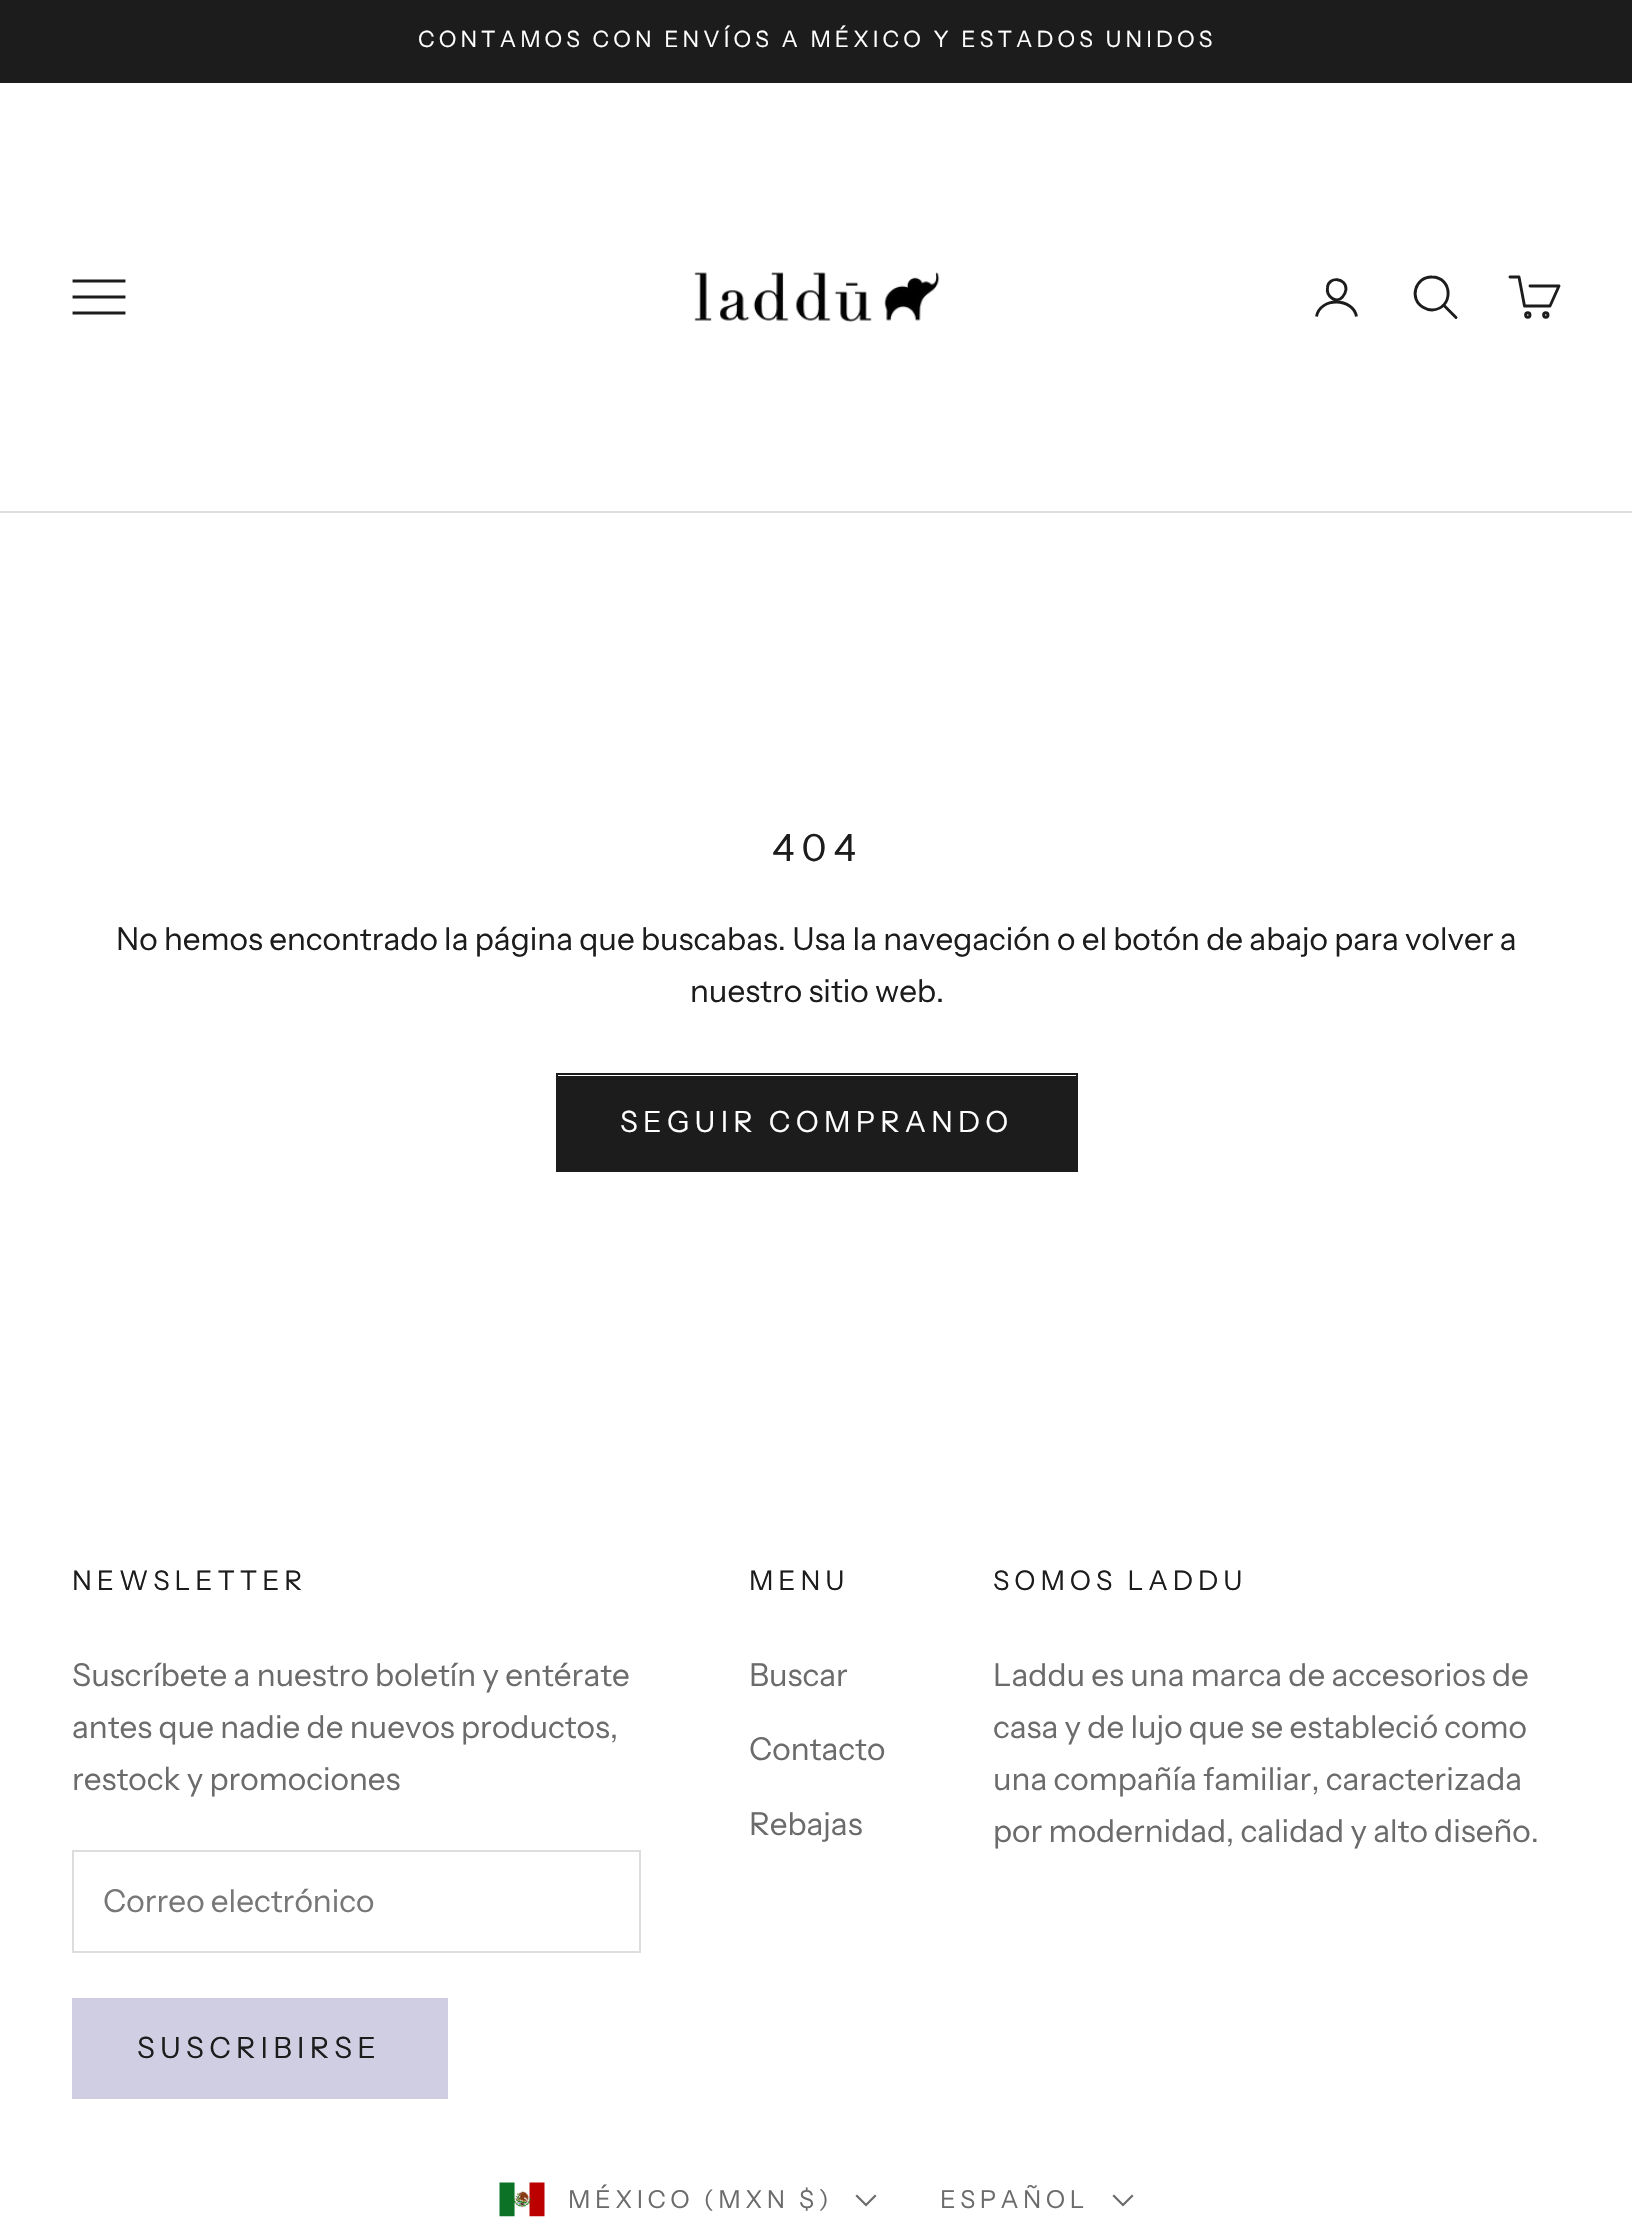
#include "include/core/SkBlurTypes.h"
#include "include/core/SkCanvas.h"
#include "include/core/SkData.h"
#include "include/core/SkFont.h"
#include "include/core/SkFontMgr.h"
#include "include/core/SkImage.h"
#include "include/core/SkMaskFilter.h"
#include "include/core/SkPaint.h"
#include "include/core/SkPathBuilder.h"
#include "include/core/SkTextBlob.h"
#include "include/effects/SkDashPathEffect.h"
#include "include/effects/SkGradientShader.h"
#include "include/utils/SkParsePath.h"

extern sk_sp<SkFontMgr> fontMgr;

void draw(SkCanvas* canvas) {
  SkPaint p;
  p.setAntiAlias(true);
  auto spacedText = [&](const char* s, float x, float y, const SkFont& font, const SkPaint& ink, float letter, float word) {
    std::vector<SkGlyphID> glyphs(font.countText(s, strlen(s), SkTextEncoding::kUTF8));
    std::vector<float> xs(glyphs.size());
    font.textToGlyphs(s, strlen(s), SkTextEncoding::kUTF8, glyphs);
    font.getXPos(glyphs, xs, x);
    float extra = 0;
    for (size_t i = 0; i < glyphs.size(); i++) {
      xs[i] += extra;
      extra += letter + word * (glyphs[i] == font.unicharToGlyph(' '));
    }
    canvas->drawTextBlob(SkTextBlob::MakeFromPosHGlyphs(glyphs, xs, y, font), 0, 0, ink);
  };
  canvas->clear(SK_ColorWHITE);
  p.setColor(SkColorSetRGB(28, 28, 28));
  canvas->drawRect(SkRect::MakeLTRB(0, 0, 1632, 83), p);
  p.setColor(SkColorSetRGB(221, 221, 221));
  canvas->drawRect(SkRect::MakeLTRB(0, 511, 1632, 513), p);
  p.setStyle(SkPaint::kStroke_Style);
  p.setStrokeWidth(2.9f);
  p.setStrokeCap(SkPaint::kSquare_Cap);
  p.setColor(SkColorSetRGB(28, 28, 28));
  canvas->drawPath(SkPathBuilder().moveTo(74, 313).lineTo(124, 313).moveTo(74, 297).lineTo(124, 297).moveTo(74, 281).lineTo(124, 281).detach(), p);
  canvas->drawImageRect(SkImages::DeferredFromEncodedData(SkData::MakeFromFileName("images/1.png")), SkRect::MakeLTRB(694, 272, 940, 322), SkSamplingOptions());
  p.setStrokeCap(SkPaint::kRound_Cap);
  p.setStrokeJoin(SkPaint::kRound_Join);
  canvas->drawPath(SkPathBuilder().moveTo(1346, 289.5f).cubicTo(1345.5f, 292.5f, 1344.5f, 295, 1342.5f, 297).cubicTo(1336, 304.5f, 1326, 296, 1327.5f, 287.5f).cubicTo(1328.5f, 276, 1346.5f, 277.5f, 1346, 289.5f).close().detach(), p);
  p.setStrokeCap(SkPaint::kButt_Cap);
  p.setStrokeJoin(SkPaint::kMiter_Join);
  canvas->drawPath(SkPathBuilder().moveTo(1316.5f, 316.5f).cubicTo(1320, 297, 1353, 297.5f, 1356.5f, 316.5f).detach(), p);
  canvas->drawPath(SkPathBuilder().moveTo(1432, 277).cubicTo(1415, 276.5f, 1408.5f, 299.5f, 1423.5f, 307.5f).cubicTo(1426, 309, 1429, 310, 1432, 310).cubicTo(1454, 309, 1453, 277, 1432, 277).close().detach(), p);
  p.setStrokeCap(SkPaint::kRound_Cap);
  canvas->drawPath(SkPathBuilder().moveTo(1444, 305.5f).lineTo(1456, 317.5f).detach(), p);
  p.setStrokeJoin(SkPaint::kRound_Join);
  canvas->drawPath(SkPathBuilder().moveTo(1530, 286).lineTo(1559, 286).lineTo(1550, 306).lineTo(1524.5f, 306).lineTo(1519, 277).lineTo(1510, 277).detach(), p);
  p.setStrokeCap(SkPaint::kButt_Cap);
  p.setStrokeJoin(SkPaint::kMiter_Join);
  canvas->drawCircle(1527.8f, 315, 2.2f, p);
  canvas->drawCircle(1545.8f, 315, 2.2f, p);
  p.setStyle(SkPaint::kFill_Style);
  canvas->drawRect(SkRect::MakeLTRB(558, 1076, 1076, 1170), p);
  p.setStyle(SkPaint::kStroke_Style);
  p.setStrokeWidth(2);
  canvas->drawRect(SkRect::MakeLTRB(557, 1074, 1077, 1171), p);
  p.setColor(SkColorSetRGB(221, 221, 221));
  canvas->drawRect(SkRect::MakeLTRB(73, 1851, 640, 1952), p);
  p.setStyle(SkPaint::kFill_Style);
  p.setColor(SkColorSetRGB(207, 206, 226));
  canvas->drawRect(SkRect::MakeLTRB(73, 1999, 447, 2098), p);
  p.setStyle(SkPaint::kStroke_Style);
  canvas->drawRect(SkRect::MakeLTRB(73, 1999, 447, 2098), p);
  canvas->drawImageRect(SkImages::DeferredFromEncodedData(SkData::MakeFromFileName("images/2.png")), SkRect::MakeLTRB(499, 2182, 545, 2217), SkSamplingOptions());
  p.setStrokeWidth(2.2f);
  p.setStrokeCap(SkPaint::kSquare_Cap);
  p.setColor(SkColorSetRGB(107, 107, 107));
  canvas->drawPath(SkPathBuilder().moveTo(857, 2196).lineTo(866, 2205).lineTo(875, 2196).detach(), p);
  canvas->drawPath(SkPathBuilder().moveTo(1114, 2196).lineTo(1123, 2205).lineTo(1132, 2196).detach(), p);
  SkFont font1(fontMgr->matchFamilyStyle("Instrument Sans", SkFontStyle::Normal()), 22.5f);
  font1.setSubpixel(true);
  p.setStyle(SkPaint::kFill_Style);
  p.setColor(SK_ColorWHITE);
  spacedText("CONTAMOS CON ENVÍOS A MÉXICO Y ESTADOS UNIDOS", 418, 47, font1, p, 4.05f, 0);
  SkFont font2(fontMgr->matchFamilyStyle("Instrument Sans", SkFontStyle::Normal()), 37.5f);
  font2.setSubpixel(true);
  p.setColor(SkColorSetRGB(28, 28, 28));
  spacedText("404", 772, 861, font2, p, 7, 0);
  SkFont font3(fontMgr->matchFamilyStyle("Instrument Sans", SkFontStyle::Normal()), 31.5f);
  font3.setSubpixel(true);
  canvas->drawString("No hemos encontrado la página que buscabas. Usa la navegación o el botón de abajo para volver a", 116, 950, font3, p);
  canvas->drawString("nuestro sitio web.", 690, 1002, font3, p);
  SkFont font4(fontMgr->matchFamilyStyle("Instrument Sans", SkFontStyle::Normal()), 29.25f);
  font4.setSubpixel(true);
  p.setColor(SK_ColorWHITE);
  spacedText("SEGUIR COMPRANDO", 620, 1132, font4, p, 5.25f, 0);
  SkFont font5(fontMgr->matchFamilyStyle("Instrument Sans", SkFontStyle::Normal()), 27);
  font5.setSubpixel(true);
  p.setColor(SkColorSetRGB(28, 28, 28));
  spacedText("NEWSLETTER", 72, 1590, font5, p, 4.9f, 0);
  p.setColor(SkColorSetRGB(107, 107, 107));
  canvas->drawString("Suscríbete a nuestro boletín y entérate", 72, 1686, font3, p);
  canvas->drawString("antes que nadie de nuevos productos,", 72, 1738, font3, p);
  canvas->drawString("restock y promociones", 72, 1790, font3, p);
  p.setColor(SkColorSetRGB(119, 119, 119));
  canvas->drawString("Correo electrónico", 103, 1912, font3, p);
  p.setColor(SkColorSetRGB(28, 28, 28));
  spacedText("SUSCRIBIRSE", 137, 2058, font4, p, 5.25f, 0);
  spacedText("MENU", 749, 1590, font5, p, 4.9f, 0);
  p.setColor(SkColorSetRGB(107, 107, 107));
  canvas->drawString("Buscar", 749, 1686, font3, p);
  canvas->drawString("Contacto", 749, 1760, font3, p);
  canvas->drawString("Rebajas", 749, 1835, font3, p);
  p.setColor(SkColorSetRGB(28, 28, 28));
  spacedText("SOMOS LADDU", 993, 1590, font5, p, 4.9f, 0);
  p.setColor(SkColorSetRGB(107, 107, 107));
  canvas->drawString("Laddu es una marca de accesorios de", 993, 1686, font3, p);
  canvas->drawString("casa y de lujo que se estableció como", 993, 1738, font3, p);
  canvas->drawString("una compañía familiar, caracterizada", 993, 1790, font3, p);
  canvas->drawString("por modernidad, calidad y alto diseño.", 993, 1842, font3, p);
  SkFont font6(fontMgr->matchFamilyStyle("Instrument Sans", SkFontStyle::Normal()), 24.75f);
  font6.setSubpixel(true);
  spacedText("MÉXICO (MXN $)", 568, 2208, font6, p, 4.5f, 0);
  spacedText("ESPAÑOL", 940, 2208, font6, p, 4.5f, 0);
}
